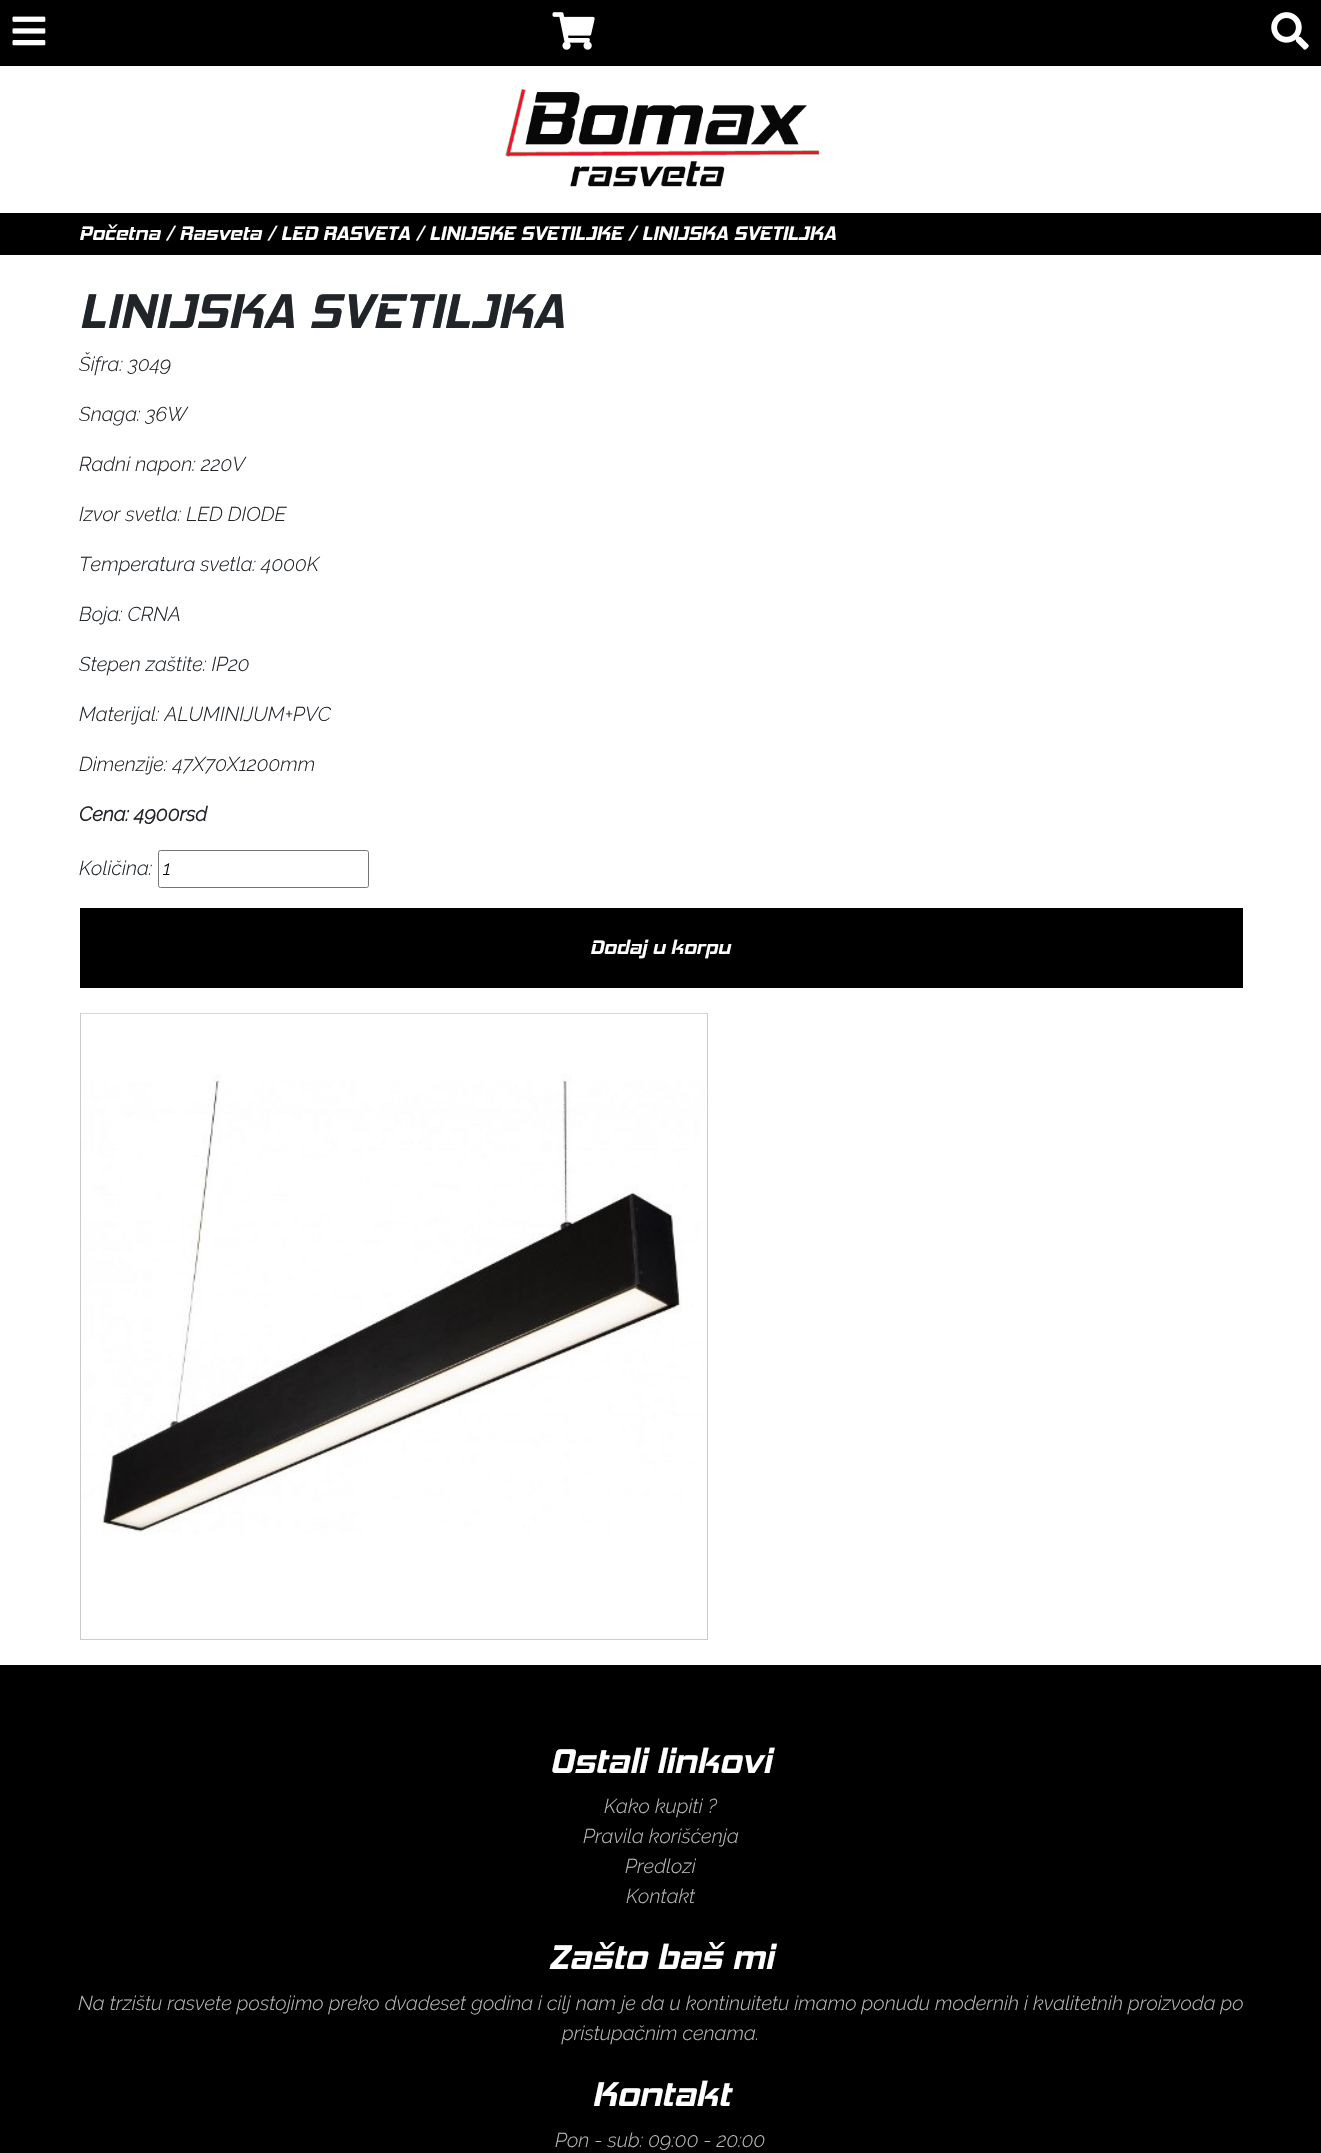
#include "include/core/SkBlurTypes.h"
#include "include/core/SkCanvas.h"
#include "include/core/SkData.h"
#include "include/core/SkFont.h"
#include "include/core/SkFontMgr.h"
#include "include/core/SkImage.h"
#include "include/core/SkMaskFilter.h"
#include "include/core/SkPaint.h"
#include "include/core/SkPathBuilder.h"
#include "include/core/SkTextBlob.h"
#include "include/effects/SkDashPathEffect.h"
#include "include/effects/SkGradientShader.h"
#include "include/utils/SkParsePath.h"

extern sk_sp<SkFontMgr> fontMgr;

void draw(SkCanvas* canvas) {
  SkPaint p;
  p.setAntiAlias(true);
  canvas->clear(SK_ColorWHITE);
  p.setColor(SK_ColorBLACK);
  canvas->drawRect(SkRect::MakeLTRB(0, 0, 1321, 66), p);
  canvas->drawImageRect(SkImages::DeferredFromEncodedData(SkData::MakeFromFileName("images/1.png")), SkRect::MakeLTRB(12, 16, 46, 46), SkSamplingOptions());
  canvas->drawImageRect(SkImages::DeferredFromEncodedData(SkData::MakeFromFileName("images/2.png")), SkRect::MakeLTRB(552, 12, 595, 50), SkSamplingOptions());
  canvas->drawImageRect(SkImages::DeferredFromEncodedData(SkData::MakeFromFileName("images/3.png")), SkRect::MakeLTRB(1271, 12, 1309, 50), SkSamplingOptions());
  canvas->drawImageRect(SkImages::DeferredFromEncodedData(SkData::MakeFromFileName("images/4.png")), SkRect::MakeLTRB(505, 88, 820, 187), SkSamplingOptions());
  canvas->drawRect(SkRect::MakeLTRB(0, 213, 1321, 255), p);
  p.setStyle(SkPaint::kStroke_Style);
  p.setStrokeWidth(1);
  p.setColor(SkColorSetRGB(118, 118, 118));
  canvas->drawRoundRect(SkRect::MakeLTRB(158.5f, 850.5f, 368.5f, 887.5f), 2, 2, p);
  p.setStyle(SkPaint::kFill_Style);
  p.setColor(SK_ColorBLACK);
  canvas->drawRect(SkRect::MakeLTRB(80, 908, 1243, 988), p);
  p.setStyle(SkPaint::kStroke_Style);
  p.setColor(SkColorSetRGB(204, 204, 204));
  canvas->drawRect(SkRect::MakeLTRB(80.5f, 1013.5f, 707.5f, 1639.5f), p);
  canvas->drawImageRect(SkImages::DeferredFromEncodedData(SkData::MakeFromFileName("images/5.png")), SkRect::MakeLTRB(81, 1013, 706, 1534), SkSamplingOptions());
  p.setStyle(SkPaint::kFill_Style);
  p.setColor(SK_ColorBLACK);
  canvas->drawRect(SkRect::MakeLTRB(0, 1665, 1321, 2153), p);
  SkFont font1(fontMgr->matchFamilyStyle("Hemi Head", SkFontStyle::BoldItalic()), 20);
  font1.setSubpixel(true);
  p.setColor(SK_ColorWHITE);
  canvas->drawString("Početna / Rasveta / LED RASVETA / LINIJSKE SVETILJKE / LINIJSKA SVETILJKA", 79, 240, font1, p);
  SkFont font2(fontMgr->matchFamilyStyle("Hemi Head", SkFontStyle::BoldItalic()), 50);
  font2.setSubpixel(true);
  p.setColor(SkColorSetRGB(33, 37, 41));
  canvas->drawString("LINIJSKA SVETILJKA", 79, 328, font2, p);
  SkFont font3(fontMgr->matchFamilyStyle("Raleway", SkFontStyle(300, SkFontStyle::kNormal_Width, SkFontStyle::kItalic_Slant)), 20);
  font3.setSubpixel(true);
  canvas->drawString("Šifra: 3049", 79, 371, font3, p);
  canvas->drawString("Snaga: 36W", 79, 421, font3, p);
  canvas->drawString("Radni napon: 220V", 79, 471, font3, p);
  canvas->drawString("Izvor svetla: LED DIODE", 79, 521, font3, p);
  canvas->drawString("Temperatura svetla: 4000K", 79, 571, font3, p);
  canvas->drawString("Boja: CRNA", 79, 621, font3, p);
  canvas->drawString("Stepen zaštite: IP20", 79, 671, font3, p);
  canvas->drawString("Materijal: ALUMINIJUM+PVC", 79, 721, font3, p);
  canvas->drawString("Dimenzije: 47X70X1200mm", 79, 771, font3, p);
  SkFont font4(fontMgr->matchFamilyStyle("Raleway", SkFontStyle::BoldItalic()), 20);
  font4.setSubpixel(true);
  canvas->drawString("Cena: 4900rsd", 79, 821, font4, p);
  canvas->drawString("Količina:", 79, 875, font3, p);
  p.setColor(SK_ColorBLACK);
  canvas->drawString("1", 163, 875, font3, p);
  p.setColor(SK_ColorWHITE);
  canvas->drawString("Dodaj u korpu", 590, 954, font1, p);
  SkFont font5(fontMgr->matchFamilyStyle("Hemi Head", SkFontStyle::BoldItalic()), 35);
  font5.setSubpixel(true);
  canvas->drawString("Ostali linkovi", 550, 1773, font5, p);
  p.setColor(SkColorSetRGB(185, 185, 185));
  canvas->drawString("Kako kupiti ?", 604, 1813, font3, p);
  canvas->drawString("Pravila korišćenja", 583, 1843, font3, p);
  canvas->drawString("Predlozi", 625, 1873, font3, p);
  canvas->drawString("Kontakt", 626, 1903, font3, p);
  p.setColor(SK_ColorWHITE);
  canvas->drawString("Zašto baš mi", 548, 1969, font5, p);
  p.setColor(SkColorSetRGB(185, 185, 185));
  canvas->drawString("Na trzištu rasvete postojimo preko dvadeset godina i cilj nam je da u kontinuitetu imamo ponudu modernih i kvalitetnih proizvoda po", 78, 2010, font3, p);
  canvas->drawString("pristupačnim cenama.", 562, 2040, font3, p);
  p.setColor(SK_ColorWHITE);
  canvas->drawString("Kontakt", 592, 2106, font5, p);
  p.setColor(SkColorSetRGB(185, 185, 185));
  canvas->drawString("Pon - sub: 09:00 - 20:00", 555, 2147, font3, p);
}
